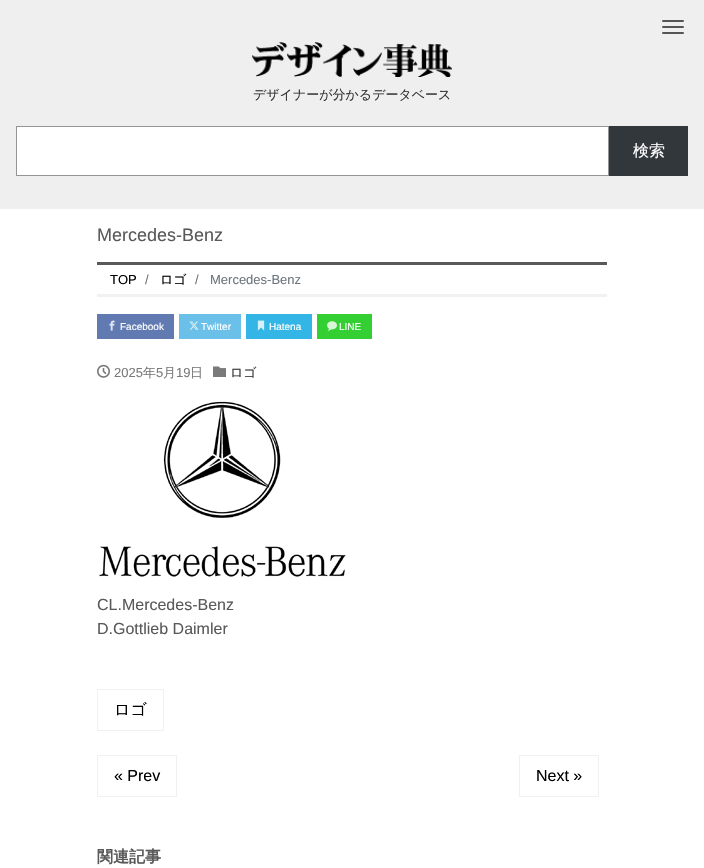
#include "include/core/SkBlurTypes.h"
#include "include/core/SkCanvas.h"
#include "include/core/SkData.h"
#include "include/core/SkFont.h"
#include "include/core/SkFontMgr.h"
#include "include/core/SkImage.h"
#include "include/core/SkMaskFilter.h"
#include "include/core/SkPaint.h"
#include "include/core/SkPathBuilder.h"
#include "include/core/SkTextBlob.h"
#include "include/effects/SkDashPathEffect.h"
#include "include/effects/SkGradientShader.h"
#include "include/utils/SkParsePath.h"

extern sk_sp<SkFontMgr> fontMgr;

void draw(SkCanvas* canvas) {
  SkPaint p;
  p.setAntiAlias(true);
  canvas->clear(SK_ColorWHITE);
  p.setColor(SkColorSetRGB(239, 239, 239));
  canvas->drawRect(SkRect::MakeLTRB(0, 0, 704, 209), p);
  p.setColor(SkColorSetRGB(85, 85, 85));
  canvas->drawRoundRect(SkRect::MakeLTRB(662, 20, 684, 22), 1, 1, p);
  canvas->drawRoundRect(SkRect::MakeLTRB(662, 26, 684, 28), 1, 1, p);
  canvas->drawRoundRect(SkRect::MakeLTRB(662, 32, 684, 34), 1, 1, p);
  canvas->drawImageRect(SkImages::DeferredFromEncodedData(SkData::MakeFromFileName("images/1.png")), SkRect::MakeLTRB(252, 42, 452, 77), SkSamplingOptions());
  p.setColor(SK_ColorWHITE);
  canvas->drawRect(SkRect::MakeLTRB(16.5f, 126.5f, 608.5f, 175.5f), p);
  p.setStyle(SkPaint::kStroke_Style);
  p.setStrokeWidth(1);
  p.setColor(SkColorSetRGB(148, 148, 148));
  canvas->drawRect(SkRect::MakeLTRB(16.5f, 126.5f, 608.5f, 175.5f), p);
  p.setStyle(SkPaint::kFill_Style);
  p.setColor(SkColorSetRGB(50, 55, 60));
  canvas->drawRect(SkRect::MakeLTRB(609, 126, 688, 176), p);
  p.setColor(SkColorSetRGB(89, 89, 89));
  canvas->drawRect(SkRect::MakeLTRB(97, 262, 607, 265), p);
  p.setColor(SkColorSetRGB(241, 241, 241));
  canvas->drawRect(SkRect::MakeLTRB(97, 294, 607, 297), p);
  p.setColor(SkColorSetRGB(97, 122, 178));
  canvas->drawRect(SkRect::MakeLTRB(97, 314, 174, 339), p);
  canvas->drawImageRect(SkImages::DeferredFromEncodedData(SkData::MakeFromFileName("images/2.png")), SkRect::MakeLTRB(109, 320, 115, 331), SkSamplingOptions());
  p.setColor(SkColorSetRGB(106, 192, 233));
  canvas->drawRect(SkRect::MakeLTRB(179, 314, 241, 339), p);
  canvas->drawImageRect(SkImages::DeferredFromEncodedData(SkData::MakeFromFileName("images/3.png")), SkRect::MakeLTRB(189, 321, 199, 330), SkSamplingOptions());
  p.setColor(SkColorSetRGB(51, 182, 229));
  canvas->drawRect(SkRect::MakeLTRB(246, 314, 312, 339), p);
  canvas->drawImageRect(SkImages::DeferredFromEncodedData(SkData::MakeFromFileName("images/4.png")), SkRect::MakeLTRB(257, 320, 265, 331), SkSamplingOptions());
  p.setColor(SkColorSetRGB(51, 207, 51));
  canvas->drawRect(SkRect::MakeLTRB(317, 314, 372, 339), p);
  canvas->drawImageRect(SkImages::DeferredFromEncodedData(SkData::MakeFromFileName("images/5.png")), SkRect::MakeLTRB(327, 321, 337, 331), SkSamplingOptions());
  canvas->drawImageRect(SkImages::DeferredFromEncodedData(SkData::MakeFromFileName("images/6.png")), SkRect::MakeLTRB(97, 364, 110, 378), SkSamplingOptions());
  canvas->drawImageRect(SkImages::DeferredFromEncodedData(SkData::MakeFromFileName("images/7.png")), SkRect::MakeLTRB(213, 366, 226, 377), SkSamplingOptions());
  canvas->drawImageRect(SkImages::DeferredFromEncodedData(SkData::MakeFromFileName("images/8.png")), SkRect::MakeLTRB(99, 401, 346, 577), SkSamplingOptions());
  p.setStyle(SkPaint::kStroke_Style);
  p.setColor(SkColorSetRGB(241, 241, 241));
  canvas->drawRect(SkRect::MakeLTRB(97.5f, 689.5f, 163.5f, 730.5f), p);
  canvas->drawRect(SkRect::MakeLTRB(97.5f, 755.5f, 176.5f, 796.5f), p);
  canvas->drawRect(SkRect::MakeLTRB(519.5f, 755.5f, 598.5f, 796.5f), p);
  SkFont font1(fontMgr->matchFamilyStyle("WenQuanYi Zen Hei", SkFontStyle(500, SkFontStyle::kNormal_Width, SkFontStyle::kUpright_Slant)), 13);
  font1.setSubpixel(true);
  p.setStyle(SkPaint::kFill_Style);
  p.setColor(SkColorSetRGB(51, 51, 51));
  canvas->drawString("デザイナーが分かるデータベース", 253, 99, font1, p);
  SkFont font2(fontMgr->matchFamilyStyle("WenQuanYi Zen Hei", SkFontStyle(500, SkFontStyle::kNormal_Width, SkFontStyle::kUpright_Slant)), 16);
  font2.setSubpixel(true);
  p.setColor(SK_ColorWHITE);
  canvas->drawString("検索", 633, 156, font2, p);
  SkFont font3(fontMgr->matchFamilyStyle("Liberation Sans", SkFontStyle::Normal()), 18);
  font3.setSubpixel(true);
  p.setColor(SkColorSetRGB(89, 89, 89));
  canvas->drawString("Mercedes-Benz", 97, 241, font3, p);
  SkFont font4(fontMgr->matchFamilyStyle("Liberation Sans", SkFontStyle::Normal()), 13);
  font4.setSubpixel(true);
  p.setColor(SK_ColorBLACK);
  canvas->drawString("TOP", 110, 284, font4, p);
  p.setColor(SkColorSetRGB(108, 117, 125));
  canvas->drawString("/", 145, 284, font4, p);
  p.setColor(SK_ColorBLACK);
  canvas->drawString("ロゴ", 160, 284, font1, p);
  p.setColor(SkColorSetRGB(108, 117, 125));
  canvas->drawString("/", 195, 284, font4, p);
  canvas->drawString("Mercedes-Benz", 210, 284, font4, p);
  SkFont font5(fontMgr->matchFamilyStyle("Liberation Sans", SkFontStyle::Normal()), 10);
  font5.setSubpixel(true);
  p.setColor(SK_ColorWHITE);
  canvas->drawString("Facebook", 120, 330, font5, p);
  canvas->drawString("Twitter", 201, 330, font5, p);
  canvas->drawString("Hatena", 269, 330, font5, p);
  canvas->drawString("LINE", 339, 330, font5, p);
  p.setColor(SkColorSetRGB(122, 122, 122));
  canvas->drawString("2025", 114, 377, font4, p);
  canvas->drawString("年", 143, 377, font1, p);
  canvas->drawString("5", 156, 377, font4, p);
  canvas->drawString("月", 163, 377, font1, p);
  canvas->drawString("19", 176, 377, font4, p);
  canvas->drawString("日", 190, 377, font1, p);
  p.setColor(SkColorSetRGB(51, 51, 51));
  canvas->drawString("ロゴ", 230, 377, font1, p);
  SkFont font6(fontMgr->matchFamilyStyle("Liberation Sans", SkFontStyle::Normal()), 16);
  font6.setSubpixel(true);
  p.setColor(SkColorSetRGB(89, 89, 89));
  canvas->drawString("CL.Mercedes-Benz", 97, 610, font6, p);
  canvas->drawString("D.Gottlieb Daimler", 97, 634, font6, p);
  p.setColor(SK_ColorBLACK);
  canvas->drawString("ロゴ", 114, 715, font2, p);
  canvas->drawString("« Prev", 114, 781, font6, p);
  canvas->drawString("Next »", 536, 781, font6, p);
  SkFont font7(fontMgr->matchFamilyStyle("WenQuanYi Zen Hei", SkFontStyle::Bold()), 16);
  font7.setSubpixel(true);
  p.setColor(SkColorSetRGB(89, 89, 89));
  canvas->drawString("関連記事", 97, 862, font7, p);
}
